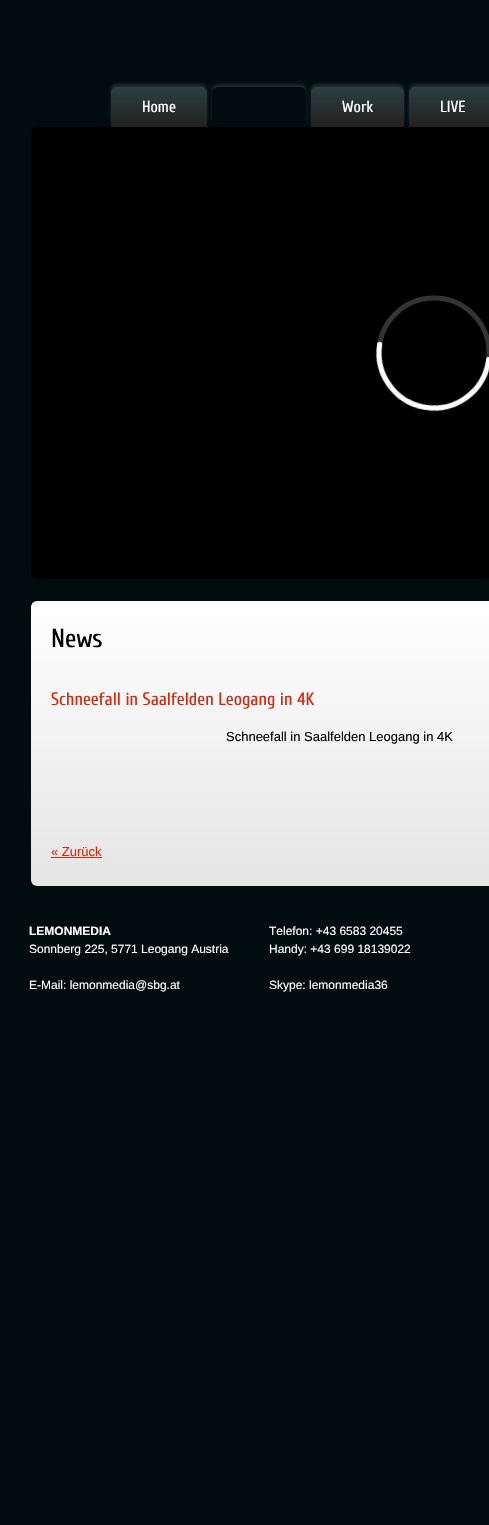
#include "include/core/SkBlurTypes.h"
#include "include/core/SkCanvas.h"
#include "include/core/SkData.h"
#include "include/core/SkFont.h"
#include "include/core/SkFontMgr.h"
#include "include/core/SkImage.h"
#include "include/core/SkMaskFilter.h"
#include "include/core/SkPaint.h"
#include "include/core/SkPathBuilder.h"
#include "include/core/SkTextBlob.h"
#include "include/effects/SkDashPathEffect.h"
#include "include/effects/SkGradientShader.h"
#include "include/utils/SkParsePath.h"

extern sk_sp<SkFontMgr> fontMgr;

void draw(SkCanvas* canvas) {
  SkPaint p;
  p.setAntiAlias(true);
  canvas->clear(SkColorSetRGB(0, 12, 13));
  canvas->drawImageRect(SkImages::DeferredFromEncodedData(SkData::MakeFromFileName("images/1.png")), SkRect::MakeLTRB(31, 127, 489, 579), SkSamplingOptions());
  p.setColor(SkColorSetRGB(31, 42, 43));
  p.setMaskFilter(SkMaskFilter::MakeBlur(kNormal_SkBlurStyle, 1.5f));
  canvas->drawRoundRect(SkRect::MakeLTRB(111, 84, 207, 124), 6, 6, p);
  p.setMaskFilter(nullptr);
  p.setMaskFilter(SkMaskFilter::MakeBlur(kNormal_SkBlurStyle, 1.5f));
  canvas->drawRoundRect(SkRect::MakeLTRB(409, 84, 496, 124), 6, 6, p);
  p.setMaskFilter(nullptr);
  {
    const SkColor colors[] = {SkColorSetRGB(44, 63, 65), SkColorSetRGB(35, 32, 32)};
    const float stops[] = {0, 1};
    const SkPoint ends[] = {{453, 87}, {453, 127}};
    p.setShader(SkGradientShader::MakeLinear(ends, colors, stops, 2, SkTileMode::kClamp));
    p.setAlpha(255);
  }
  canvas->drawPath(SkPathBuilder().moveTo(415, 87).lineTo(489, 87).cubicTo(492.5f, 87, 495, 89.5f, 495, 93).lineTo(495, 127).lineTo(409, 127).lineTo(409, 93).cubicTo(409, 89.5f, 411.5f, 87, 415, 87).close().detach(), p);
  p.setShader(nullptr);
  p.setColor(SkColorSetRGB(31, 42, 43));
  p.setMaskFilter(SkMaskFilter::MakeBlur(kNormal_SkBlurStyle, 1.5f));
  canvas->drawRoundRect(SkRect::MakeLTRB(311, 84, 404, 124), 6, 6, p);
  p.setMaskFilter(nullptr);
  {
    const SkColor colors[] = {SkColorSetRGB(44, 63, 65), SkColorSetRGB(35, 32, 32)};
    const float stops[] = {0, 1};
    const SkPoint ends[] = {{358, 87}, {358, 127}};
    p.setShader(SkGradientShader::MakeLinear(ends, colors, stops, 2, SkTileMode::kClamp));
    p.setAlpha(255);
  }
  canvas->drawPath(SkPathBuilder().moveTo(317, 87).lineTo(398, 87).cubicTo(401.5f, 87, 404, 89.5f, 404, 93).lineTo(404, 127).lineTo(311, 127).lineTo(311, 93).cubicTo(311, 89.5f, 313.5f, 87, 317, 87).close().detach(), p);
  canvas->save();
  canvas->clipPath(SkPathBuilder(SkPathFillType::kEvenOdd).moveTo(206, 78).lineTo(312, 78).lineTo(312, 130).lineTo(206, 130).close().moveTo(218, 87).lineTo(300, 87).cubicTo(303.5f, 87, 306, 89.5f, 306, 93).lineTo(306, 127).lineTo(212, 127).lineTo(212, 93).cubicTo(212, 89.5f, 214.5f, 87, 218, 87).close().detach(), true);
  p.setShader(nullptr);
  p.setColor(SkColorSetRGB(31, 42, 43));
  p.setMaskFilter(SkMaskFilter::MakeBlur(kNormal_SkBlurStyle, 1.5f));
  canvas->drawRoundRect(SkRect::MakeLTRB(212, 84, 306, 124), 6, 6, p);
  p.setMaskFilter(nullptr);
  canvas->restore();
  {
    const SkColor colors[] = {SkColorSetRGB(44, 63, 65), SkColorSetRGB(35, 32, 32)};
    const float stops[] = {0, 1};
    const SkPoint ends[] = {{159, 87}, {159, 127}};
    p.setShader(SkGradientShader::MakeLinear(ends, colors, stops, 2, SkTileMode::kClamp));
    p.setAlpha(255);
  }
  canvas->drawPath(SkPathBuilder().moveTo(117, 87).lineTo(201, 87).cubicTo(204.5f, 87, 207, 89.5f, 207, 93).lineTo(207, 127).lineTo(111, 127).lineTo(111, 93).cubicTo(111, 89.5f, 113.5f, 87, 117, 87).close().detach(), p);
  {
    const SkColor colors[] = {SK_ColorWHITE, SkColorSetRGB(229, 229, 229)};
    const float stops[] = {0, 1};
    const SkPoint ends[] = {{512, 601}, {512, 886}};
    p.setShader(SkGradientShader::MakeLinear(ends, colors, stops, 2, SkTileMode::kClamp));
    p.setAlpha(255);
  }
  canvas->drawRoundRect(SkRect::MakeLTRB(31, 601, 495, 886), 6, 6, p);
  p.setShader(nullptr);
  p.setColor(SkColorSetRGB(210, 40, 12));
  canvas->drawRect(SkRect::MakeLTRB(51, 857, 102, 858), p);
  SkFont font1(fontMgr->matchFamilyStyle("Cuprum", SkFontStyle::Normal()), 16);
  font1.setSubpixel(true);
  p.setColor(SK_ColorWHITE);
  canvas->drawString("Home", 142, 112, font1, p);
  canvas->drawString("Work", 342, 112, font1, p);
  canvas->drawString("LIVE", 440, 112, font1, p);
  SkFont font2(fontMgr->matchFamilyStyle("Cuprum", SkFontStyle::Normal()), 26);
  font2.setSubpixel(true);
  p.setColor(SK_ColorBLACK);
  canvas->drawString("News", 51, 647, font2, p);
  SkFont font3(fontMgr->matchFamilyStyle("Cuprum", SkFontStyle::Normal()), 18);
  font3.setSubpixel(true);
  p.setColor(SkColorSetRGB(210, 40, 12));
  canvas->drawString("Schneefall in Saalfelden Leogang in 4K", 51, 705, font3, p);
  SkFont font4(fontMgr->matchFamilyStyle("Liberation Sans", SkFontStyle::Normal()), 13);
  font4.setSubpixel(true);
  p.setColor(SK_ColorBLACK);
  canvas->drawString("Schneefall in Saalfelden Leogang in 4K", 226, 741, font4, p);
  p.setColor(SkColorSetRGB(210, 40, 12));
  canvas->drawString("« Zurück", 51, 856, font4, p);
  SkFont font5(fontMgr->matchFamilyStyle("Liberation Sans", SkFontStyle::Bold()), 12);
  font5.setSubpixel(true);
  p.setColor(SK_ColorWHITE);
  canvas->drawString("LEMONMEDIA", 29, 935, font5, p);
  SkFont font6(fontMgr->matchFamilyStyle("Liberation Sans", SkFontStyle::Normal()), 12);
  font6.setSubpixel(true);
  canvas->drawString("Sonnberg 225, 5771 Leogang Austria", 29, 953, font6, p);
  canvas->drawString("E-Mail: lemonmedia@sbg.at", 29, 989, font6, p);
  canvas->drawString("Telefon: +43 6583 20455", 269, 935, font6, p);
  canvas->drawString("Handy: +43 699 18139022", 269, 953, font6, p);
  canvas->drawString("Skype: lemonmedia36", 269, 989, font6, p);
}
